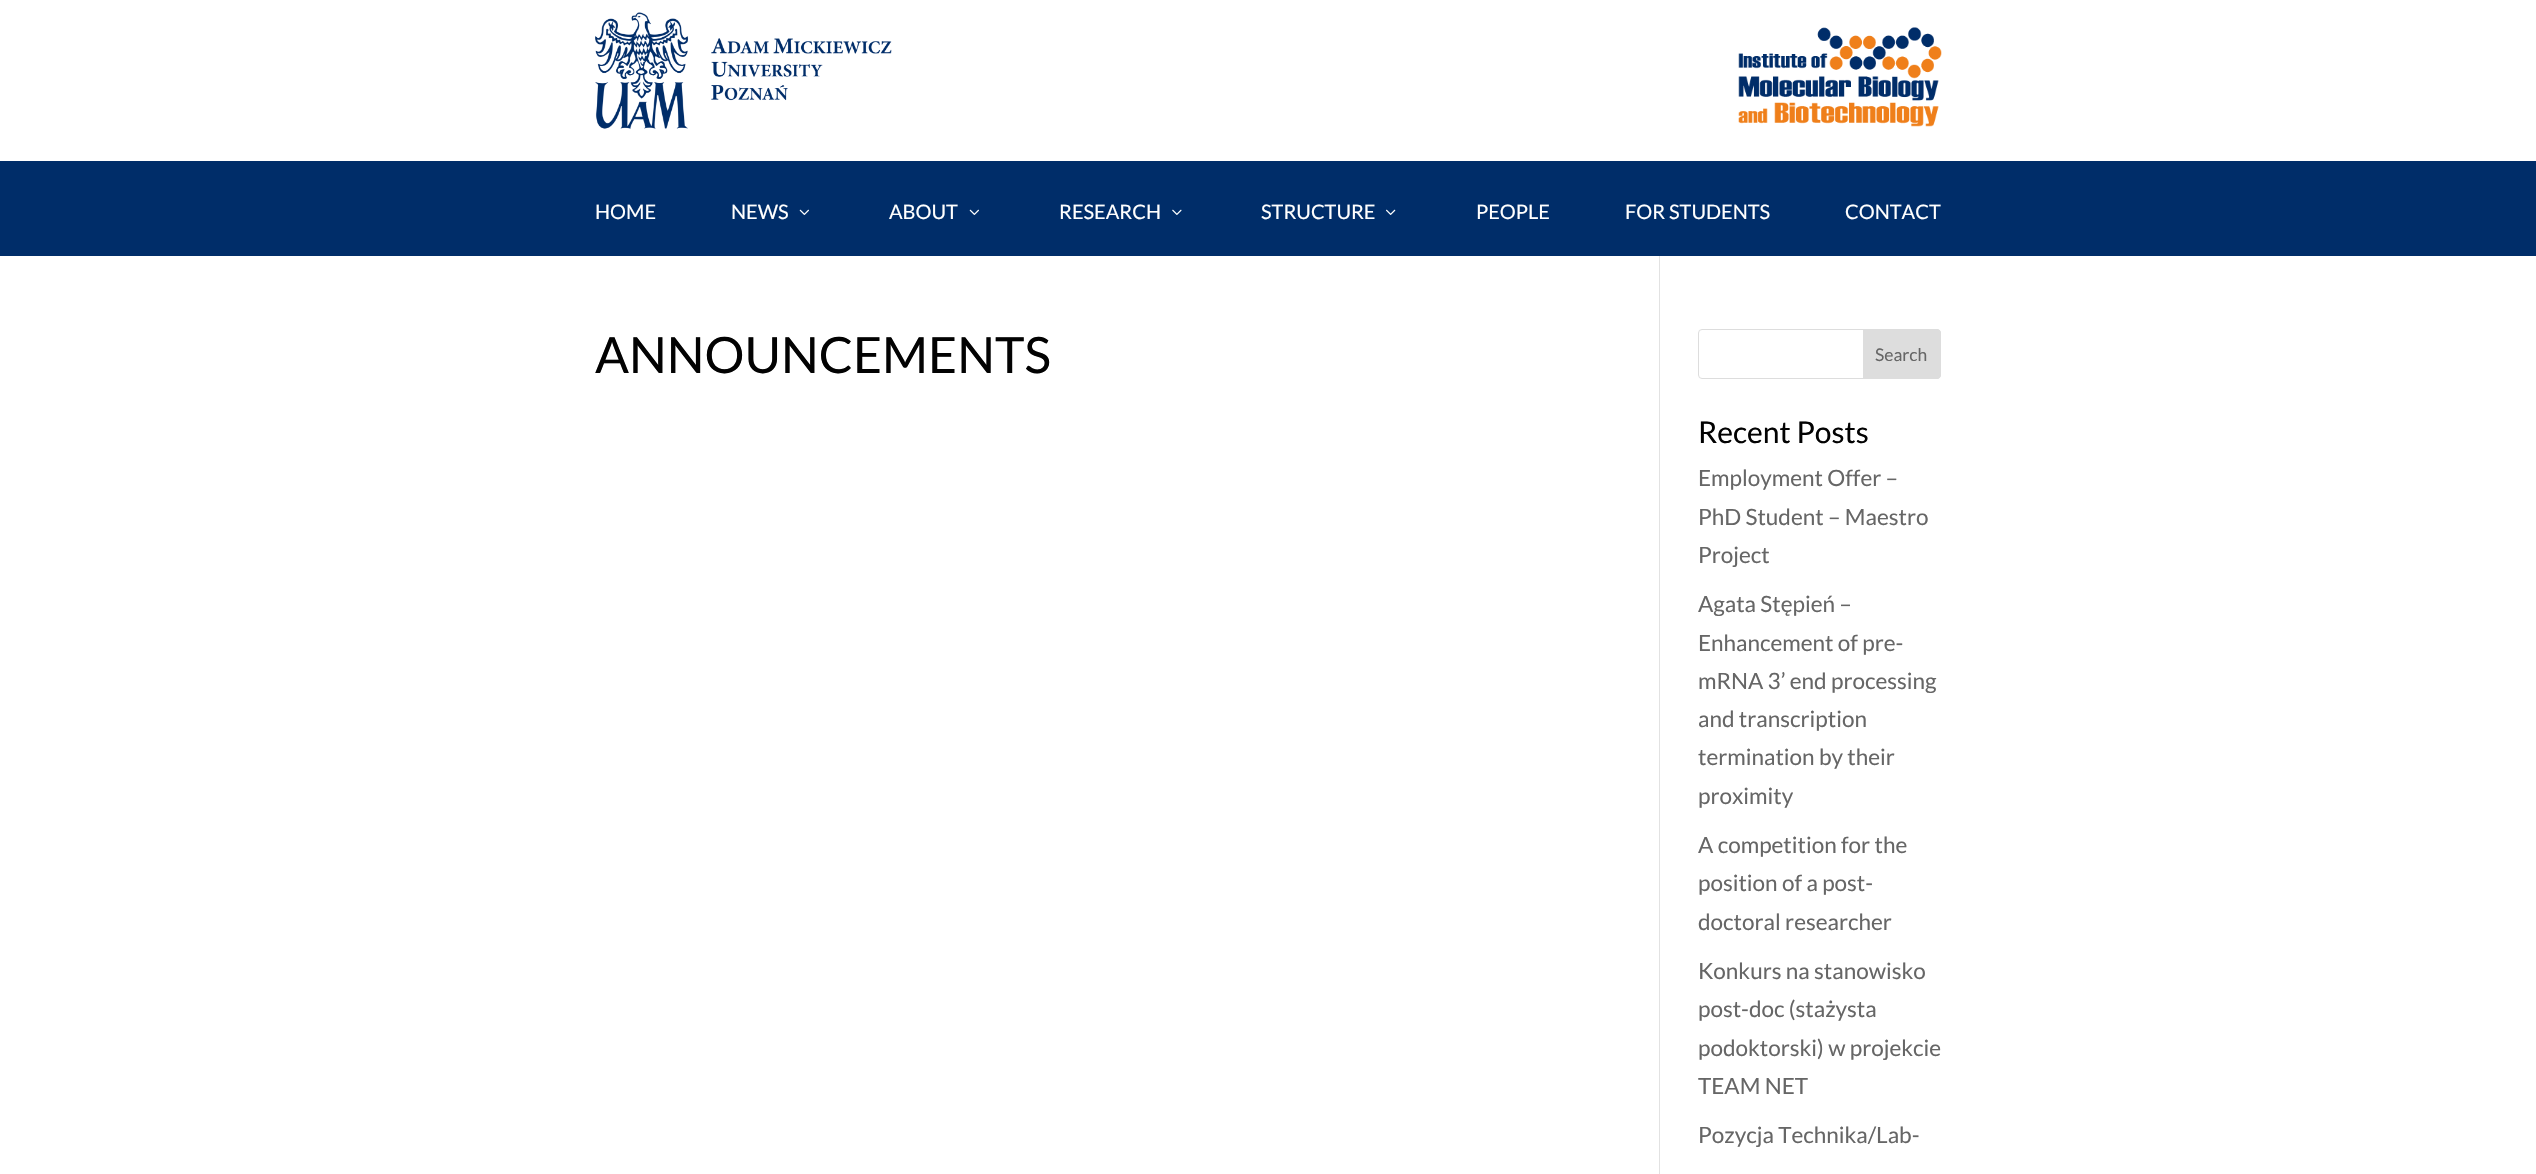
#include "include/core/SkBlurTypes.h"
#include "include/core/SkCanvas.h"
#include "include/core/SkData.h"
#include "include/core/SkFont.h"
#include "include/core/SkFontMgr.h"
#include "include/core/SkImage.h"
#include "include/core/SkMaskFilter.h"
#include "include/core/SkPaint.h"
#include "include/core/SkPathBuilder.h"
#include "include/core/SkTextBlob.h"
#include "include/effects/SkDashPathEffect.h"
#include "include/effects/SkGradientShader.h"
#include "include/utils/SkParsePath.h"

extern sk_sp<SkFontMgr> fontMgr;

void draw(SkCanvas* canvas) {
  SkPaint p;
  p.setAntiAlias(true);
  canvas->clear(SK_ColorWHITE);
  canvas->drawImageRect(SkImages::DeferredFromEncodedData(SkData::MakeFromFileName("images/1.png")), SkRect::MakeLTRB(595, 12, 892, 129), SkSamplingOptions());
  canvas->drawImageRect(SkImages::DeferredFromEncodedData(SkData::MakeFromFileName("images/2.png")), SkRect::MakeLTRB(1738, 27, 1942, 127), SkSamplingOptions());
  p.setColor(SkColorSetRGB(0, 45, 105));
  canvas->drawRect(SkRect::MakeLTRB(0, 161, 2536, 256), p);
  canvas->drawImageRect(SkImages::DeferredFromEncodedData(SkData::MakeFromFileName("images/3.png")), SkRect::MakeLTRB(799, 209, 809, 215), SkSamplingOptions());
  canvas->drawImageRect(SkImages::DeferredFromEncodedData(SkData::MakeFromFileName("images/3.png")), SkRect::MakeLTRB(969, 209, 979, 215), SkSamplingOptions());
  canvas->drawImageRect(SkImages::DeferredFromEncodedData(SkData::MakeFromFileName("images/4.png")), SkRect::MakeLTRB(1172, 209, 1182, 215), SkSamplingOptions());
  canvas->drawImageRect(SkImages::DeferredFromEncodedData(SkData::MakeFromFileName("images/5.png")), SkRect::MakeLTRB(1386, 209, 1396, 215), SkSamplingOptions());
  p.setColor(SkColorSetRGB(226, 226, 226));
  canvas->drawRect(SkRect::MakeLTRB(1659, 256, 1660, 1174), p);
  p.setStyle(SkPaint::kStroke_Style);
  p.setStrokeWidth(1);
  p.setColor(SkColorSetRGB(221, 221, 221));
  canvas->drawRoundRect(SkRect::MakeLTRB(1698.5f, 329.5f, 1940.5f, 378.5f), 3.5f, 3.5f, p);
  p.setStyle(SkPaint::kFill_Style);
  canvas->drawPath(SkPathBuilder().moveTo(1863.5f, 329.5f).lineTo(1937, 329.5f).cubicTo(1939, 329.5f, 1940.5f, 331, 1940.5f, 333).lineTo(1940.5f, 375).cubicTo(1940.5f, 377, 1939, 378.5f, 1937, 378.5f).lineTo(1863.5f, 378.5f).close().detach(), p);
  p.setStyle(SkPaint::kStroke_Style);
  canvas->drawPath(SkPathBuilder().moveTo(1863.5f, 329.5f).lineTo(1937, 329.5f).cubicTo(1939, 329.5f, 1940.5f, 331, 1940.5f, 333).lineTo(1940.5f, 375).cubicTo(1940.5f, 377, 1939, 378.5f, 1937, 378.5f).lineTo(1863.5f, 378.5f).close().detach(), p);
  SkFont font1(fontMgr->matchFamilyStyle("Lato", SkFontStyle::Normal()), 20);
  font1.setSubpixel(true);
  p.setStyle(SkPaint::kFill_Style);
  p.setColor(SK_ColorWHITE);
  canvas->drawString("HOME", 595, 219, font1, p);
  canvas->drawString("NEWS", 731, 219, font1, p);
  canvas->drawString("ABOUT", 889, 219, font1, p);
  canvas->drawString("RESEARCH", 1059, 219, font1, p);
  canvas->drawString("STRUCTURE", 1261, 219, font1, p);
  canvas->drawString("PEOPLE", 1476, 219, font1, p);
  canvas->drawString("FOR STUDENTS", 1625, 219, font1, p);
  canvas->drawString("CONTACT", 1845, 219, font1, p);
  SkFont font2(fontMgr->matchFamilyStyle("Lato", SkFontStyle::Normal()), 50);
  font2.setSubpixel(true);
  p.setColor(SkColorSetRGB(2, 2, 2));
  canvas->drawString("ANNOUNCEMENTS", 595, 373, font2, p);
  SkFont font3(fontMgr->matchFamilyStyle("Lato", SkFontStyle::Normal()), 17.5f);
  font3.setSubpixel(true);
  p.setColor(SkColorSetRGB(102, 102, 102));
  canvas->drawString("Search", 1875, 361, font3, p);
  SkFont font4(fontMgr->matchFamilyStyle("Lato", SkFontStyle::Normal()), 30);
  font4.setSubpixel(true);
  p.setColor(SkColorSetRGB(2, 2, 2));
  canvas->drawString("Recent Posts", 1698, 443, font4, p);
  SkFont font5(fontMgr->matchFamilyStyle("Lato", SkFontStyle::Normal()), 22.5f);
  font5.setSubpixel(true);
  p.setColor(SkColorSetRGB(102, 102, 102));
  canvas->drawString("Employment Offer –", 1698, 486, font5, p);
  canvas->drawString("PhD Student – Maestro", 1698, 525, font5, p);
  canvas->drawString("Project", 1698, 563, font5, p);
  canvas->drawString("Agata Stępień –", 1698, 612, font5, p);
  canvas->drawString("Enhancement of pre-", 1698, 651, font5, p);
  canvas->drawString("mRNA 3’ end processing", 1698, 689, font5, p);
  canvas->drawString("and transcription", 1698, 727, font5, p);
  canvas->drawString("termination by their", 1698, 765, font5, p);
  canvas->drawString("proximity", 1698, 804, font5, p);
  canvas->drawString("A competition for the", 1698, 853, font5, p);
  canvas->drawString("position of a post-", 1698, 891, font5, p);
  canvas->drawString("doctoral researcher", 1698, 930, font5, p);
  canvas->drawString("Konkurs na stanowisko", 1698, 979, font5, p);
  canvas->drawString("post-doc (stażysta", 1698, 1017, font5, p);
  canvas->drawString("podoktorski) w projekcie", 1698, 1056, font5, p);
  canvas->drawString("TEAM NET", 1698, 1094, font5, p);
  canvas->drawString("Pozycja Technika/Lab-", 1698, 1143, font5, p);
}
